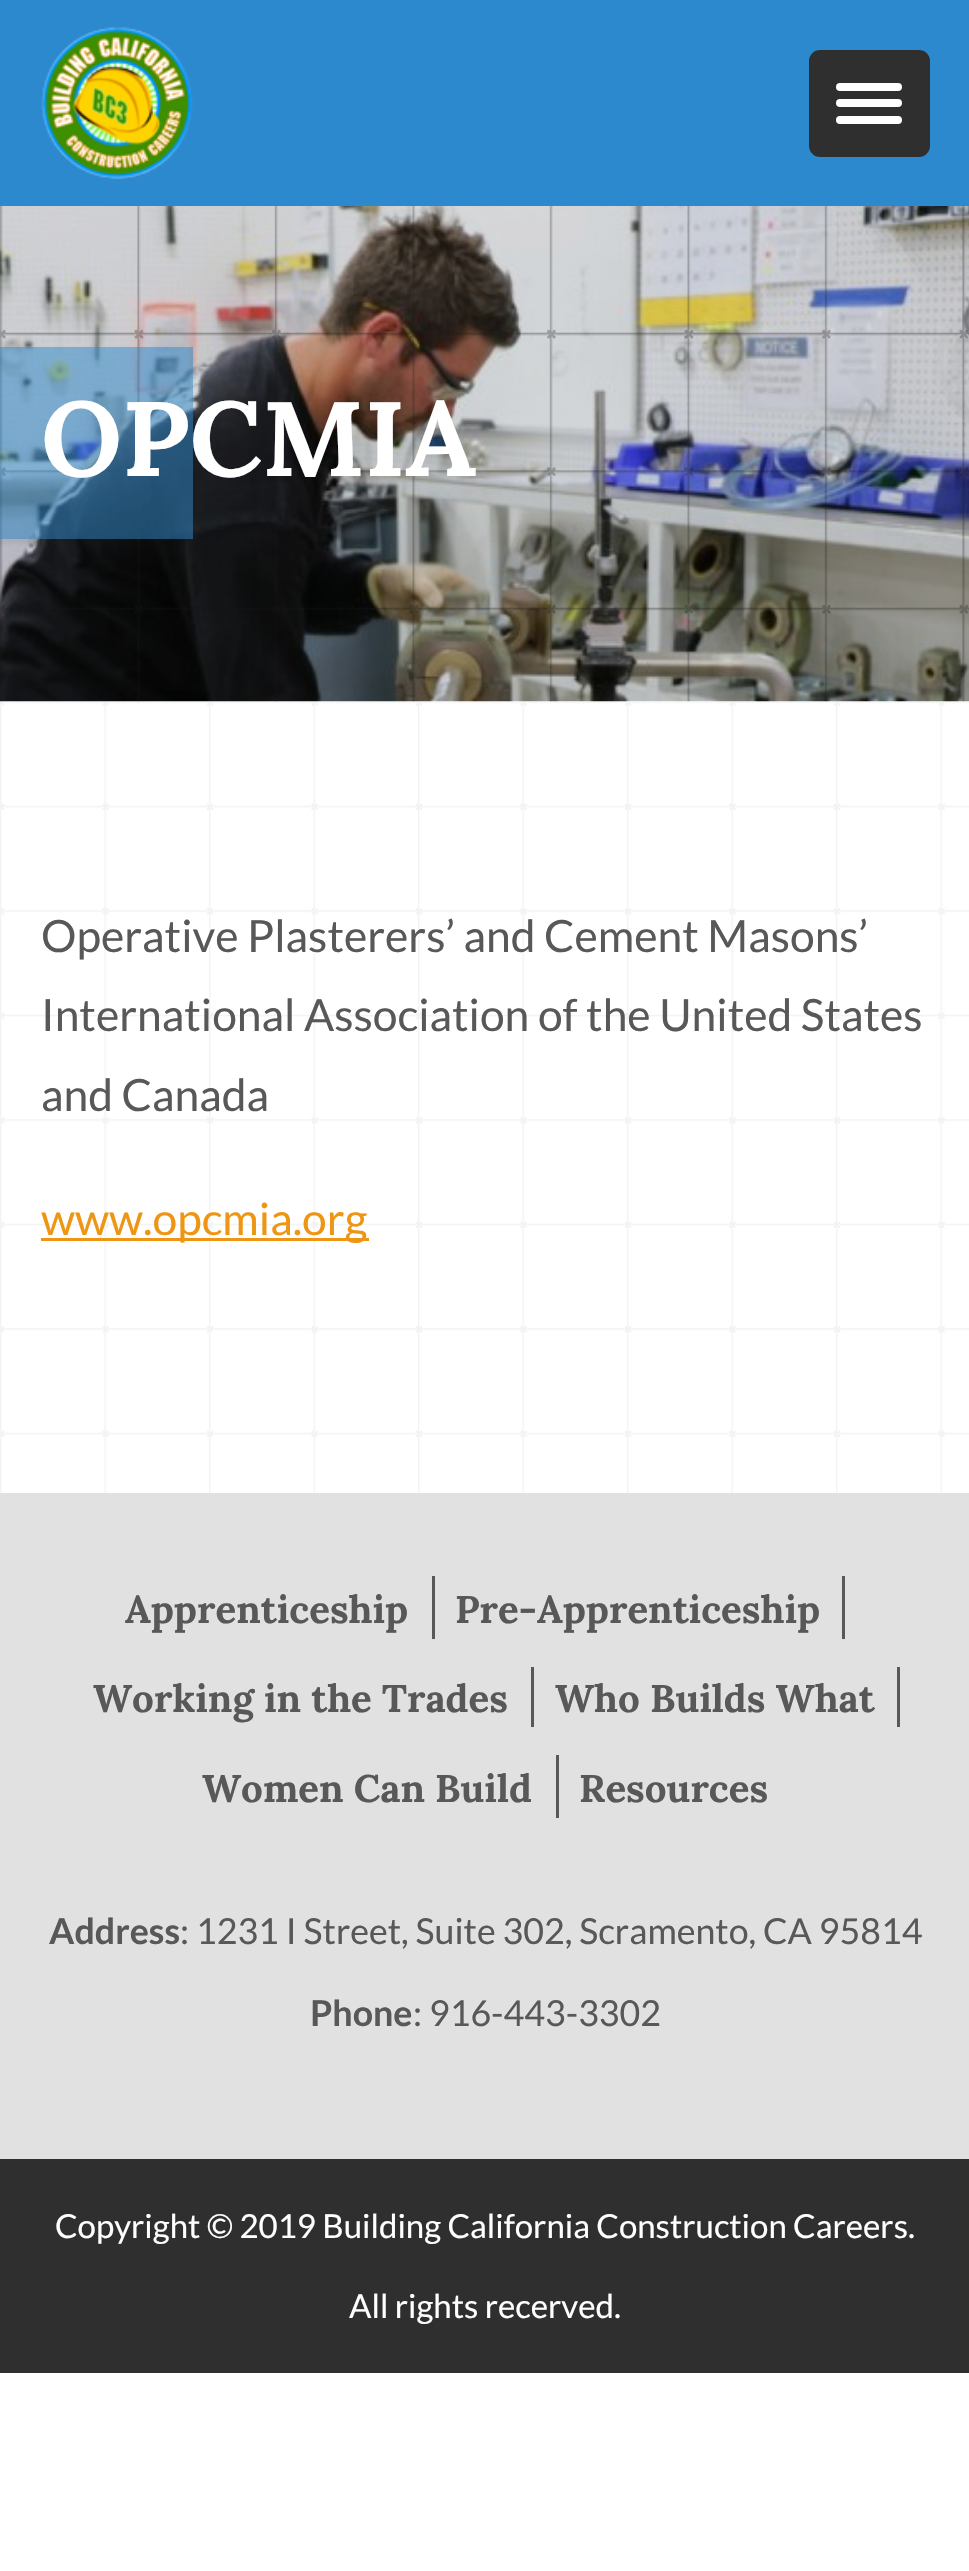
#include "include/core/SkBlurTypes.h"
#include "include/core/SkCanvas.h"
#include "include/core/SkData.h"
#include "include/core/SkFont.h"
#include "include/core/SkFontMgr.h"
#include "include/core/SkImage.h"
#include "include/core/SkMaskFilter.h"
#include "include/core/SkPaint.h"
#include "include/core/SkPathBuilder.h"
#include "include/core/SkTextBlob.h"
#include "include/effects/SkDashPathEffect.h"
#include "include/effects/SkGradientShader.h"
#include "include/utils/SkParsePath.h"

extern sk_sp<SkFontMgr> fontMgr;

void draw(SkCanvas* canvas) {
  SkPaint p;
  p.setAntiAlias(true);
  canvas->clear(SK_ColorWHITE);
  p.setColor(SkColorSetRGB(45, 137, 206));
  canvas->drawRect(SkRect::MakeLTRB(0, 0, 969, 206), p);
  canvas->drawImageRect(SkImages::DeferredFromEncodedData(SkData::MakeFromFileName("images/1.png")), SkRect::MakeLTRB(41, 27, 193, 179), SkSamplingOptions());
  p.setColor(SkColorSetRGB(47, 47, 47));
  canvas->drawRoundRect(SkRect::MakeLTRB(809, 50, 930, 157), 11, 11, p);
  p.setColor(SK_ColorWHITE);
  canvas->drawRoundRect(SkRect::MakeLTRB(836, 83, 902, 91), 4, 4, p);
  canvas->drawRoundRect(SkRect::MakeLTRB(836, 99, 902, 107), 4, 4, p);
  canvas->drawRoundRect(SkRect::MakeLTRB(836, 116, 902, 124), 4, 4, p);
  canvas->drawImageRect(SkImages::DeferredFromEncodedData(SkData::MakeFromFileName("images/2.png")), SkRect::MakeLTRB(0, 206, 969, 702), SkSamplingOptions());
  canvas->drawImageRect(SkImages::DeferredFromEncodedData(SkData::MakeFromFileName("images/3.png")), SkRect::MakeLTRB(0, 206, 969, 702), SkSamplingOptions());
  p.setColor(SkColorSetARGB(128, 45, 137, 206));
  canvas->drawRect(SkRect::MakeLTRB(0, 347, 193, 539), p);
  canvas->drawImageRect(SkImages::DeferredFromEncodedData(SkData::MakeFromFileName("images/4.png")), SkRect::MakeLTRB(0, 701, 969, 1493), SkSamplingOptions());
  p.setColor(SkColorSetRGB(238, 150, 20));
  canvas->drawRect(SkRect::MakeLTRB(41, 1238, 369, 1241), p);
  p.setColor(SkColorSetRGB(225, 225, 225));
  canvas->drawRect(SkRect::MakeLTRB(0, 1493, 969, 2159), p);
  p.setColor(SkColorSetRGB(88, 88, 88));
  canvas->drawRect(SkRect::MakeLTRB(432, 1576, 435, 1639), p);
  canvas->drawRect(SkRect::MakeLTRB(842, 1576, 845, 1639), p);
  canvas->drawRect(SkRect::MakeLTRB(531, 1667, 534, 1727), p);
  canvas->drawRect(SkRect::MakeLTRB(897, 1667, 900, 1727), p);
  canvas->drawRect(SkRect::MakeLTRB(556, 1755, 559, 1818), p);
  p.setColor(SkColorSetRGB(47, 47, 47));
  canvas->drawRect(SkRect::MakeLTRB(0, 2159, 969, 2373), p);
  SkFont font1(fontMgr->matchFamilyStyle("Lora", SkFontStyle::Bold()), 105.5f);
  font1.setSubpixel(true);
  p.setColor(SK_ColorWHITE);
  canvas->drawString("OPCMIA", 41, 476, font1, p);
  SkFont font2(fontMgr->matchFamilyStyle("Lato", SkFontStyle::Normal()), 44.4f);
  font2.setSubpixel(true);
  p.setColor(SkColorSetRGB(88, 88, 88));
  canvas->drawString("Operative Plasterers’ and Cement Masons’", 41, 952, font2, p);
  canvas->drawString("International Association of the United States", 41, 1031, font2, p);
  canvas->drawString("and Canada", 41, 1111, font2, p);
  p.setColor(SkColorSetRGB(238, 150, 20));
  canvas->drawString("www.opcmia.org", 41, 1235, font2, p);
  SkFont font3(fontMgr->matchFamilyStyle("Lora", SkFontStyle::Bold()), 38.5f);
  font3.setSubpixel(true);
  p.setColor(SkColorSetRGB(88, 88, 88));
  canvas->drawString("Apprenticeship", 125, 1623, font3, p);
  canvas->drawString("Pre-Apprenticeship", 455, 1623, font3, p);
  canvas->drawString("Working in the Trades", 93, 1712, font3, p);
  canvas->drawString("Who Builds What", 555, 1712, font3, p);
  canvas->drawString("Women Can Build", 202, 1802, font3, p);
  canvas->drawString("Resources", 579, 1802, font3, p);
  SkFont font4(fontMgr->matchFamilyStyle("Lato", SkFontStyle::Bold()), 35.75f);
  font4.setSubpixel(true);
  canvas->drawString("Address", 49, 1944, font4, p);
  SkFont font5(fontMgr->matchFamilyStyle("Lato", SkFontStyle::Normal()), 35.75f);
  font5.setSubpixel(true);
  canvas->drawString(": 1231 I Street, Suite 302, Scramento, CA 95814", 180, 1944, font5, p);
  canvas->drawString("Phone", 310, 2026, font4, p);
  canvas->drawString(": 916-443-3302", 413, 2026, font5, p);
  SkFont font6(fontMgr->matchFamilyStyle("Lato", SkFontStyle::Normal()), 33);
  font6.setSubpixel(true);
  p.setColor(SK_ColorWHITE);
  canvas->drawString("Copyright © 2019 Building California Construction Careers.", 55, 2238, font6, p);
  canvas->drawString("All rights recerved.", 349, 2318, font6, p);
}
